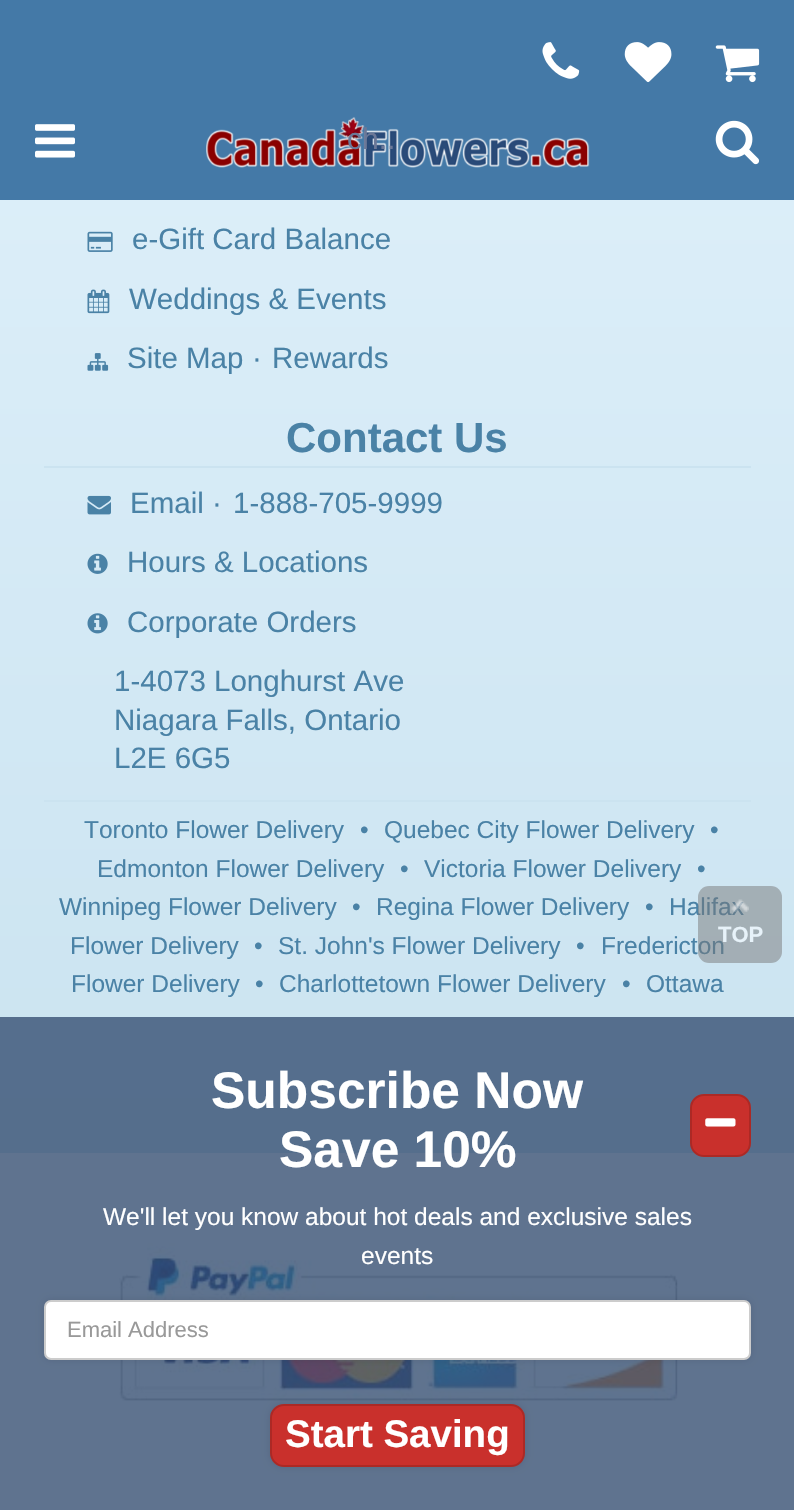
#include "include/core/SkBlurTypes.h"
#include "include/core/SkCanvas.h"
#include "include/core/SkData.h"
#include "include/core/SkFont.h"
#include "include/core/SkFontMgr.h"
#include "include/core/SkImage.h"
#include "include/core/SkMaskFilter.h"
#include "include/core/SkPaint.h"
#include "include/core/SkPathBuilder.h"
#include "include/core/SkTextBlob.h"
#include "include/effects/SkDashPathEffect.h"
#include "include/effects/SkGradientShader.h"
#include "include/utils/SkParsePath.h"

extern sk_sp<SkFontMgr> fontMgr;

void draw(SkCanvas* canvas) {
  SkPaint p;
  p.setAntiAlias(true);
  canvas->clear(SK_ColorWHITE);
  p.setColor(SkColorSetRGB(68, 121, 167));
  canvas->drawRect(SkRect::MakeLTRB(0, 0, 794, 200), p);
  canvas->drawImageRect(SkImages::DeferredFromEncodedData(SkData::MakeFromFileName("images/1.png")), SkRect::MakeLTRB(542, 42, 580, 79), SkSamplingOptions());
  canvas->drawImageRect(SkImages::DeferredFromEncodedData(SkData::MakeFromFileName("images/2.png")), SkRect::MakeLTRB(624, 42, 672, 83), SkSamplingOptions());
  canvas->drawImageRect(SkImages::DeferredFromEncodedData(SkData::MakeFromFileName("images/3.png")), SkRect::MakeLTRB(715, 45, 760, 83), SkSamplingOptions());
  canvas->drawImageRect(SkImages::DeferredFromEncodedData(SkData::MakeFromFileName("images/4.png")), SkRect::MakeLTRB(35, 124, 75, 158), SkSamplingOptions());
  canvas->drawImageRect(SkImages::DeferredFromEncodedData(SkData::MakeFromFileName("images/5.png")), SkRect::MakeLTRB(206, 117, 590, 168), SkSamplingOptions());
  canvas->drawImageRect(SkImages::DeferredFromEncodedData(SkData::MakeFromFileName("images/6.png")), SkRect::MakeLTRB(715, 120, 760, 165), SkSamplingOptions());
  {
    const SkColor colors[] = {SkColorSetRGB(232, 246, 255), SkColorSetRGB(202, 227, 240)};
    const float stops[] = {0, 1};
    const SkPoint ends[] = {{397, -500}, {397, 1153}};
    p.setShader(SkGradientShader::MakeLinear(ends, colors, stops, 2, SkTileMode::kClamp));
    p.setAlpha(255);
  }
  canvas->drawRect(SkRect::MakeLTRB(0, 200, 794, 1153), p);
  canvas->drawImageRect(SkImages::DeferredFromEncodedData(SkData::MakeFromFileName("images/7.png")), SkRect::MakeLTRB(87, 231, 113, 252), SkSamplingOptions());
  canvas->drawImageRect(SkImages::DeferredFromEncodedData(SkData::MakeFromFileName("images/8.png")), SkRect::MakeLTRB(87, 289, 110, 314), SkSamplingOptions());
  canvas->drawImageRect(SkImages::DeferredFromEncodedData(SkData::MakeFromFileName("images/9.png")), SkRect::MakeLTRB(87, 353, 109, 371), SkSamplingOptions());
  p.setShader(nullptr);
  p.setColor(SkColorSetRGB(203, 227, 240));
  canvas->drawRect(SkRect::MakeLTRB(44, 466, 751, 468), p);
  canvas->drawImageRect(SkImages::DeferredFromEncodedData(SkData::MakeFromFileName("images/10.png")), SkRect::MakeLTRB(87, 495, 111, 515), SkSamplingOptions());
  canvas->drawImageRect(SkImages::DeferredFromEncodedData(SkData::MakeFromFileName("images/11.png")), SkRect::MakeLTRB(87, 553, 108, 574), SkSamplingOptions());
  canvas->drawImageRect(SkImages::DeferredFromEncodedData(SkData::MakeFromFileName("images/12.png")), SkRect::MakeLTRB(87, 613, 108, 634), SkSamplingOptions());
  canvas->drawRect(SkRect::MakeLTRB(44, 800, 751, 802), p);
  canvas->drawImageRect(SkImages::DeferredFromEncodedData(SkData::MakeFromFileName("images/13.png")), SkRect::MakeLTRB(119, 1243, 678, 1401), SkSamplingOptions());
  p.setColor(SkColorSetARGB(204, 55, 80, 115));
  canvas->drawRect(SkRect::MakeLTRB(0, 1017, 794, 1510), p);
  p.setColor(SkColorSetRGB(201, 48, 44));
  canvas->drawRoundRect(SkRect::MakeLTRB(691, 1095, 750, 1156), 13, 13, p);
  p.setStyle(SkPaint::kStroke_Style);
  p.setStrokeWidth(2);
  p.setColor(SkColorSetRGB(172, 41, 37));
  canvas->drawRoundRect(SkRect::MakeLTRB(691, 1095, 750, 1156), 13, 13, p);
  canvas->drawImageRect(SkImages::DeferredFromEncodedData(SkData::MakeFromFileName("images/15.png")), SkRect::MakeLTRB(705, 1118, 736, 1127), SkSamplingOptions());
  p.setStyle(SkPaint::kFill_Style);
  p.setColor(SkColorSetARGB(26, 0, 0, 0));
  p.setMaskFilter(SkMaskFilter::MakeBlur(kNormal_SkBlurStyle, 3.5f));
  canvas->drawRoundRect(SkRect::MakeLTRB(44, 1300, 751, 1360), 7, 7, p);
  p.setMaskFilter(nullptr);
  p.setColor(SK_ColorWHITE);
  canvas->drawRoundRect(SkRect::MakeLTRB(45, 1301, 750, 1359), 6, 6, p);
  p.setStyle(SkPaint::kStroke_Style);
  p.setColor(SkColorSetRGB(204, 204, 204));
  canvas->drawRoundRect(SkRect::MakeLTRB(45, 1301, 750, 1359), 6, 6, p);
  p.setStyle(SkPaint::kFill_Style);
  p.setColor(SkColorSetARGB(26, 0, 0, 0));
  p.setMaskFilter(SkMaskFilter::MakeBlur(kNormal_SkBlurStyle, 3.5f));
  canvas->drawRoundRect(SkRect::MakeLTRB(270, 1404, 525, 1467), 14, 14, p);
  p.setMaskFilter(nullptr);
  p.setColor(SkColorSetRGB(201, 48, 44));
  canvas->drawRoundRect(SkRect::MakeLTRB(271, 1405, 524, 1466), 13, 13, p);
  p.setStyle(SkPaint::kStroke_Style);
  p.setColor(SkColorSetRGB(172, 41, 37));
  canvas->drawRoundRect(SkRect::MakeLTRB(271, 1405, 524, 1466), 13, 13, p);
  SkFont font1(fontMgr->matchFamilyStyle("Liberation Sans", SkFontStyle::Normal()), 30);
  font1.setSubpixel(true);
  p.setStyle(SkPaint::kFill_Style);
  p.setColor(SkColorSetRGB(107, 120, 152));
  canvas->drawString("ch..", 347, 149, font1, p);
  SkFont font2(fontMgr->matchFamilyStyle("Liberation Sans", SkFontStyle::Normal()), 29.5f);
  font2.setSubpixel(true);
  p.setColor(SkColorSetRGB(74, 130, 166));
  canvas->drawString("e-Gift Card Balance", 132, 249, font2, p);
  canvas->drawString("Weddings & Events", 129, 309, font2, p);
  canvas->drawString("Site Map", 127, 368, font2, p);
  canvas->drawString("·", 252, 368, font2, p);
  canvas->drawString("Rewards", 272, 368, font2, p);
  SkFont font3(fontMgr->matchFamilyStyle("Liberation Sans", SkFontStyle::Bold()), 42);
  font3.setSubpixel(true);
  canvas->drawString("Contact Us", 286, 452, font3, p);
  canvas->drawString("Email", 130, 513, font2, p);
  canvas->drawString("·", 212, 513, font2, p);
  canvas->drawString("1-888-705-9999", 233, 513, font2, p);
  canvas->drawString("Hours & Locations", 127, 572, font2, p);
  canvas->drawString("Corporate Orders", 127, 632, font2, p);
  canvas->drawString("1-4073 Longhurst Ave", 114, 691, font2, p);
  canvas->drawString("Niagara Falls, Ontario", 114, 730, font2, p);
  canvas->drawString("L2E 6G5", 114, 768, font2, p);
  SkFont font4(fontMgr->matchFamilyStyle("Liberation Sans", SkFontStyle::Normal()), 24.5f);
  font4.setSubpixel(true);
  canvas->drawString("Toronto Flower Delivery", 84, 838, font4, p);
  canvas->drawString("•", 360, 838, font4, p);
  canvas->drawString("Quebec City Flower Delivery", 384, 838, font4, p);
  canvas->drawString("•", 710, 838, font4, p);
  canvas->drawString("Edmonton Flower Delivery", 97, 877, font4, p);
  canvas->drawString("•", 400, 877, font4, p);
  canvas->drawString("Victoria Flower Delivery", 424, 877, font4, p);
  canvas->drawString("•", 697, 877, font4, p);
  canvas->drawString("Winnipeg Flower Delivery", 59, 915, font4, p);
  canvas->drawString("•", 352, 915, font4, p);
  canvas->drawString("Regina Flower Delivery", 376, 915, font4, p);
  canvas->drawString("•", 645, 915, font4, p);
  canvas->drawString("Halifax", 669, 915, font4, p);
  canvas->drawString("Flower Delivery", 70, 954, font4, p);
  canvas->drawString("•", 254, 954, font4, p);
  canvas->drawString("St. John's Flower Delivery", 278, 954, font4, p);
  canvas->drawString("•", 576, 954, font4, p);
  canvas->drawString("Fredericton", 601, 954, font4, p);
  canvas->drawString("Flower Delivery", 71, 992, font4, p);
  canvas->drawString("•", 255, 992, font4, p);
  canvas->drawString("Charlottetown Flower Delivery", 279, 992, font4, p);
  canvas->drawString("•", 622, 992, font4, p);
  canvas->drawString("Ottawa", 646, 992, font4, p);
  p.setColor(SkColorSetARGB(128, 119, 119, 119));
  canvas->drawRoundRect(SkRect::MakeLTRB(698, 886, 782, 963), 11, 11, p);
  canvas->drawImageRect(SkImages::DeferredFromEncodedData(SkData::MakeFromFileName("images/14.png")), SkRect::MakeLTRB(731, 899, 749, 912), SkSamplingOptions());
  SkFont font5(fontMgr->matchFamilyStyle("Liberation Sans", SkFontStyle::Bold()), 22);
  font5.setSubpixel(true);
  p.setColor(SkColorSetRGB(231, 242, 249));
  canvas->drawString("TOP", 718, 942, font5, p);
  SkFont font6(fontMgr->matchFamilyStyle("Liberation Sans", SkFontStyle::Bold()), 51.5f);
  font6.setSubpixel(true);
  p.setColor(SK_ColorWHITE);
  canvas->drawString("Subscribe Now", 211, 1108, font6, p);
  canvas->drawString("Save 10%", 279, 1167, font6, p);
  canvas->drawString("We'll let you know about hot deals and exclusive sales", 103, 1225, font4, p);
  canvas->drawString("events", 361, 1264, font4, p);
  SkFont font7(fontMgr->matchFamilyStyle("Liberation Sans", SkFontStyle::Normal()), 22);
  font7.setSubpixel(true);
  p.setColor(SkColorSetRGB(153, 153, 153));
  canvas->drawString("Email Address", 67, 1337, font7, p);
  SkFont font8(fontMgr->matchFamilyStyle("Liberation Sans", SkFontStyle::Bold()), 38.5f);
  font8.setSubpixel(true);
  p.setColor(SK_ColorWHITE);
  canvas->drawString("Start Saving", 285, 1447, font8, p);
}
